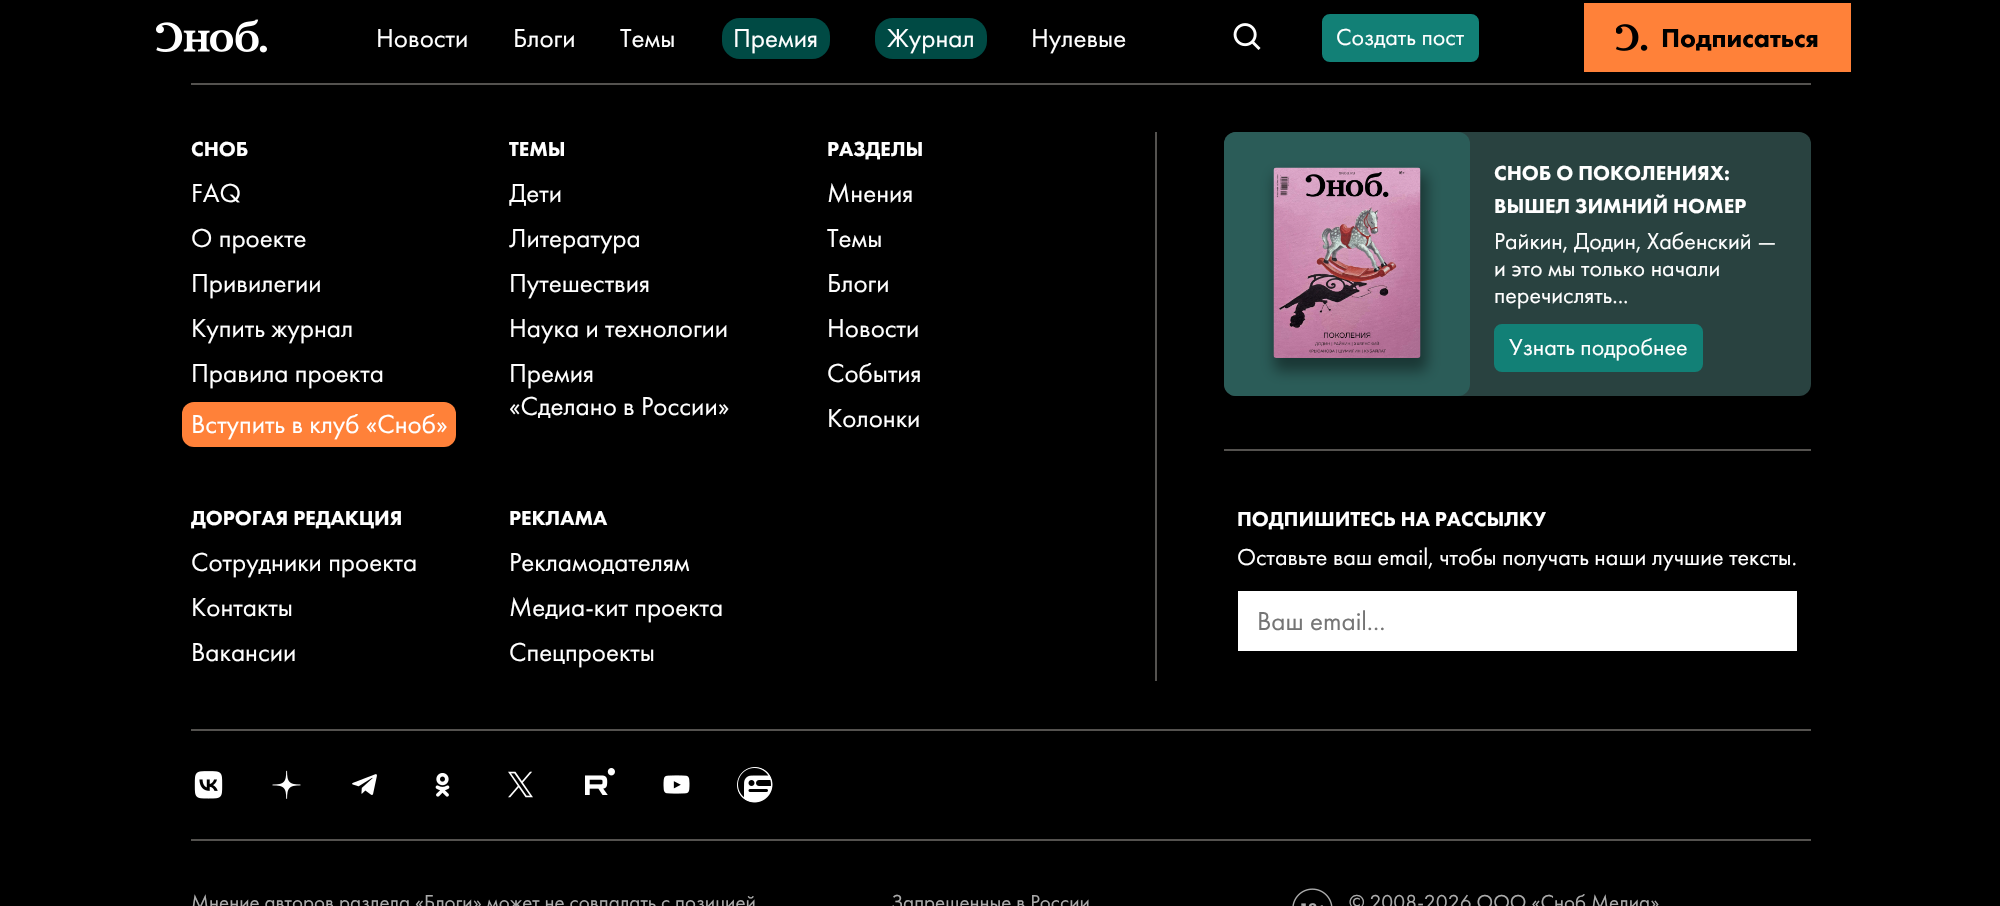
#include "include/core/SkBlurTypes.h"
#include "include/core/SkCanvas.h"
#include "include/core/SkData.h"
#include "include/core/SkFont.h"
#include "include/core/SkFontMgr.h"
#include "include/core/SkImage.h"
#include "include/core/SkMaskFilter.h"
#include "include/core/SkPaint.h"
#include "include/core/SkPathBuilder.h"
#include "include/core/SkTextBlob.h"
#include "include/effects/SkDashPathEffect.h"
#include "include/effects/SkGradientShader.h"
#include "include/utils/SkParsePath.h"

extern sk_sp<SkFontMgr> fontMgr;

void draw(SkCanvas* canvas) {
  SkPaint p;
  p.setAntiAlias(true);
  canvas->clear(SK_ColorBLACK);
  canvas->drawImageRect(SkImages::DeferredFromEncodedData(SkData::MakeFromFileName("images/1.png")), SkRect::MakeLTRB(156, 19, 267, 53), SkSamplingOptions());
  p.setColor(SkColorSetRGB(0, 74, 68));
  canvas->drawRoundRect(SkRect::MakeLTRB(722, 18, 830, 59), 18, 18, p);
  canvas->drawRoundRect(SkRect::MakeLTRB(875, 18, 987, 59), 18, 18, p);
  canvas->drawImageRect(SkImages::DeferredFromEncodedData(SkData::MakeFromFileName("images/2.png")), SkRect::MakeLTRB(1233, 23, 1261, 50), SkSamplingOptions());
  p.setColor(SkColorSetRGB(18, 128, 118));
  canvas->drawRoundRect(SkRect::MakeLTRB(1323.5f, 15.5f, 1477.5f, 60.5f), 6.5f, 6.5f, p);
  p.setStyle(SkPaint::kStroke_Style);
  p.setStrokeWidth(3);
  canvas->drawRoundRect(SkRect::MakeLTRB(1323.5f, 15.5f, 1477.5f, 60.5f), 6.5f, 6.5f, p);
  p.setStyle(SkPaint::kFill_Style);
  p.setColor(SkColorSetRGB(255, 129, 57));
  canvas->drawRect(SkRect::MakeLTRB(1584, 3, 1851, 72), p);
  canvas->drawImageRect(SkImages::DeferredFromEncodedData(SkData::MakeFromFileName("images/3.png")), SkRect::MakeLTRB(1616, 24, 1648, 51), SkSamplingOptions());
  p.setColor(SkColorSetRGB(84, 82, 79));
  canvas->drawRect(SkRect::MakeLTRB(191, 83, 1811, 85), p);
  canvas->drawRect(SkRect::MakeLTRB(191, 729, 1811, 731), p);
  p.setColor(SkColorSetRGB(255, 129, 57));
  canvas->drawRoundRect(SkRect::MakeLTRB(182, 402, 456, 447), 12, 12, p);
  p.setColor(SkColorSetRGB(84, 82, 79));
  canvas->drawRect(SkRect::MakeLTRB(1155, 132, 1157, 681), p);
  p.setColor(SkColorSetRGB(41, 66, 64));
  canvas->drawRoundRect(SkRect::MakeLTRB(1224, 132, 1811, 396), 12, 12, p);
  p.setColor(SkColorSetRGB(43, 92, 88));
  canvas->drawRoundRect(SkRect::MakeLTRB(1224, 132, 1470, 396), 12, 12, p);
  p.setColor(SkColorSetARGB(105, 0, 0, 0));
  p.setMaskFilter(SkMaskFilter::MakeBlur(kNormal_SkBlurStyle, 7));
  canvas->drawRoundRect(SkRect::MakeLTRB(1274, 174, 1427, 371), 6, 6, p);
  p.setMaskFilter(nullptr);
  canvas->drawImageRect(SkImages::DeferredFromEncodedData(SkData::MakeFromFileName("images/4.png")), SkRect::MakeLTRB(1273, 167, 1421, 358), SkSamplingOptions());
  p.setColor(SkColorSetRGB(18, 128, 118));
  canvas->drawRoundRect(SkRect::MakeLTRB(1495.5f, 325.5f, 1701.5f, 370.5f), 6.5f, 6.5f, p);
  p.setStyle(SkPaint::kStroke_Style);
  canvas->drawRoundRect(SkRect::MakeLTRB(1495.5f, 325.5f, 1701.5f, 370.5f), 6.5f, 6.5f, p);
  p.setStyle(SkPaint::kFill_Style);
  p.setColor(SkColorSetRGB(84, 82, 79));
  canvas->drawRect(SkRect::MakeLTRB(1224, 449, 1811, 451), p);
  p.setColor(SK_ColorWHITE);
  canvas->drawRect(SkRect::MakeLTRB(1238, 591, 1797, 651), p);
  canvas->drawImageRect(SkImages::DeferredFromEncodedData(SkData::MakeFromFileName("images/5.png")), SkRect::MakeLTRB(194, 771, 223, 799), SkSamplingOptions());
  canvas->drawImageRect(SkImages::DeferredFromEncodedData(SkData::MakeFromFileName("images/6.png")), SkRect::MakeLTRB(272, 770, 301, 799), SkSamplingOptions());
  canvas->drawImageRect(SkImages::DeferredFromEncodedData(SkData::MakeFromFileName("images/7.png")), SkRect::MakeLTRB(352, 774, 377, 795), SkSamplingOptions());
  canvas->drawImageRect(SkImages::DeferredFromEncodedData(SkData::MakeFromFileName("images/8.png")), SkRect::MakeLTRB(435, 773, 450, 797), SkSamplingOptions());
  canvas->drawImageRect(SkImages::DeferredFromEncodedData(SkData::MakeFromFileName("images/9.png")), SkRect::MakeLTRB(508, 771, 533, 798), SkSamplingOptions());
  canvas->drawImageRect(SkImages::DeferredFromEncodedData(SkData::MakeFromFileName("images/10.png")), SkRect::MakeLTRB(585, 768, 615, 795), SkSamplingOptions());
  canvas->drawImageRect(SkImages::DeferredFromEncodedData(SkData::MakeFromFileName("images/11.png")), SkRect::MakeLTRB(663, 775, 690, 794), SkSamplingOptions());
  canvas->drawImageRect(SkImages::DeferredFromEncodedData(SkData::MakeFromFileName("images/12.png")), SkRect::MakeLTRB(737, 767, 773, 803), SkSamplingOptions());
  p.setColor(SkColorSetRGB(84, 82, 79));
  canvas->drawRect(SkRect::MakeLTRB(191, 839, 1811, 841), p);
  canvas->drawImageRect(SkImages::DeferredFromEncodedData(SkData::MakeFromFileName("images/13.png")), SkRect::MakeLTRB(1292, 888, 1333, 906), SkSamplingOptions());
  SkFont font1(fontMgr->matchFamilyStyle("Futura PT", SkFontStyle::Normal()), 27);
  font1.setSubpixel(true);
  p.setColor(SK_ColorWHITE);
  canvas->drawString("Новости", 376, 47, font1, p);
  canvas->drawString("Блоги", 513, 47, font1, p);
  canvas->drawString("Темы", 620, 47, font1, p);
  canvas->drawString("Премия", 733, 47, font1, p);
  canvas->drawString("Журнал", 887, 47, font1, p);
  canvas->drawString("Нулевые", 1031, 47, font1, p);
  SkFont font2(fontMgr->matchFamilyStyle("Futura PT", SkFontStyle::Normal()), 24);
  font2.setSubpixel(true);
  canvas->drawString("Создать пост", 1336, 45, font2, p);
  SkFont font3(fontMgr->matchFamilyStyle("Futura PT", SkFontStyle(900, SkFontStyle::kNormal_Width, SkFontStyle::kUpright_Slant)), 27);
  font3.setSubpixel(true);
  p.setColor(SK_ColorBLACK);
  canvas->drawString("Подписаться", 1661, 47, font3, p);
  SkFont font4(fontMgr->matchFamilyStyle("Futura PT", SkFontStyle(900, SkFontStyle::kNormal_Width, SkFontStyle::kUpright_Slant)), 21);
  font4.setSubpixel(true);
  p.setColor(SK_ColorWHITE);
  canvas->drawString("СНОБ", 191, 156, font4, p);
  canvas->drawString("FAQ", 191, 202, font1, p);
  canvas->drawString("О проекте", 191, 247, font1, p);
  canvas->drawString("Привилегии", 191, 292, font1, p);
  canvas->drawString("Купить журнал", 191, 337, font1, p);
  canvas->drawString("Правила проекта", 191, 382, font1, p);
  canvas->drawString("Вступить в клуб «Сноб»", 191, 433, font1, p);
  canvas->drawString("ТЕМЫ", 509, 156, font4, p);
  canvas->drawString("Дети", 509, 202, font1, p);
  canvas->drawString("Литература", 509, 247, font1, p);
  canvas->drawString("Путешествия", 509, 292, font1, p);
  canvas->drawString("Наука и технологии", 509, 337, font1, p);
  canvas->drawString("Премия", 509, 382, font1, p);
  canvas->drawString("«Сделано в России»", 509, 415, font1, p);
  canvas->drawString("РАЗДЕЛЫ", 827, 156, font4, p);
  canvas->drawString("Мнения", 827, 202, font1, p);
  canvas->drawString("Темы", 827, 247, font1, p);
  canvas->drawString("Блоги", 827, 292, font1, p);
  canvas->drawString("Новости", 827, 337, font1, p);
  canvas->drawString("События", 827, 382, font1, p);
  canvas->drawString("Колонки", 827, 427, font1, p);
  canvas->drawString("ДОРОГАЯ РЕДАКЦИЯ", 191, 525, font4, p);
  canvas->drawString("Сотрудники проекта", 191, 571, font1, p);
  canvas->drawString("Контакты", 191, 616, font1, p);
  canvas->drawString("Вакансии", 191, 661, font1, p);
  canvas->drawString("РЕКЛАМА", 509, 525, font4, p);
  canvas->drawString("Рекламодателям", 509, 571, font1, p);
  canvas->drawString("Медиа-кит проекта", 509, 616, font1, p);
  canvas->drawString("Спецпроекты", 509, 661, font1, p);
  canvas->drawString("СНОБ О ПОКОЛЕНИЯХ:", 1494, 180, font4, p);
  canvas->drawString("ВЫШЕЛ ЗИМНИЙ НОМЕР", 1494, 213, font4, p);
  canvas->drawString("Райкин, Додин, Хабенский —", 1494, 249, font2, p);
  canvas->drawString("и это мы только начали", 1494, 276, font2, p);
  canvas->drawString("перечислять...", 1494, 303, font2, p);
  canvas->drawString("Узнать подробнее", 1509, 355, font2, p);
  canvas->drawString("ПОДПИШИТЕСЬ НА РАССЫЛКУ", 1237, 526, font4, p);
  canvas->drawString("Оставьте ваш email, чтобы получать наши лучшие тексты.", 1237, 565, font2, p);
  p.setColor(SkColorSetRGB(117, 117, 117));
  canvas->drawString("Ваш email...", 1257, 630, font1, p);
  SkFont font5(fontMgr->matchFamilyStyle("Futura PT", SkFontStyle::Normal()), 21);
  font5.setSubpixel(true);
  p.setColor(SkColorSetRGB(171, 171, 171));
  canvas->drawString("Мнение авторов раздела «Блоги» может не совпадать с позицией", 191, 909, font5, p);
  canvas->drawString("Запрещенные в России", 891, 909, font5, p);
  canvas->drawString("© 2008-2026 ООО «Сноб Медиа»", 1349, 909, font5, p);
}
